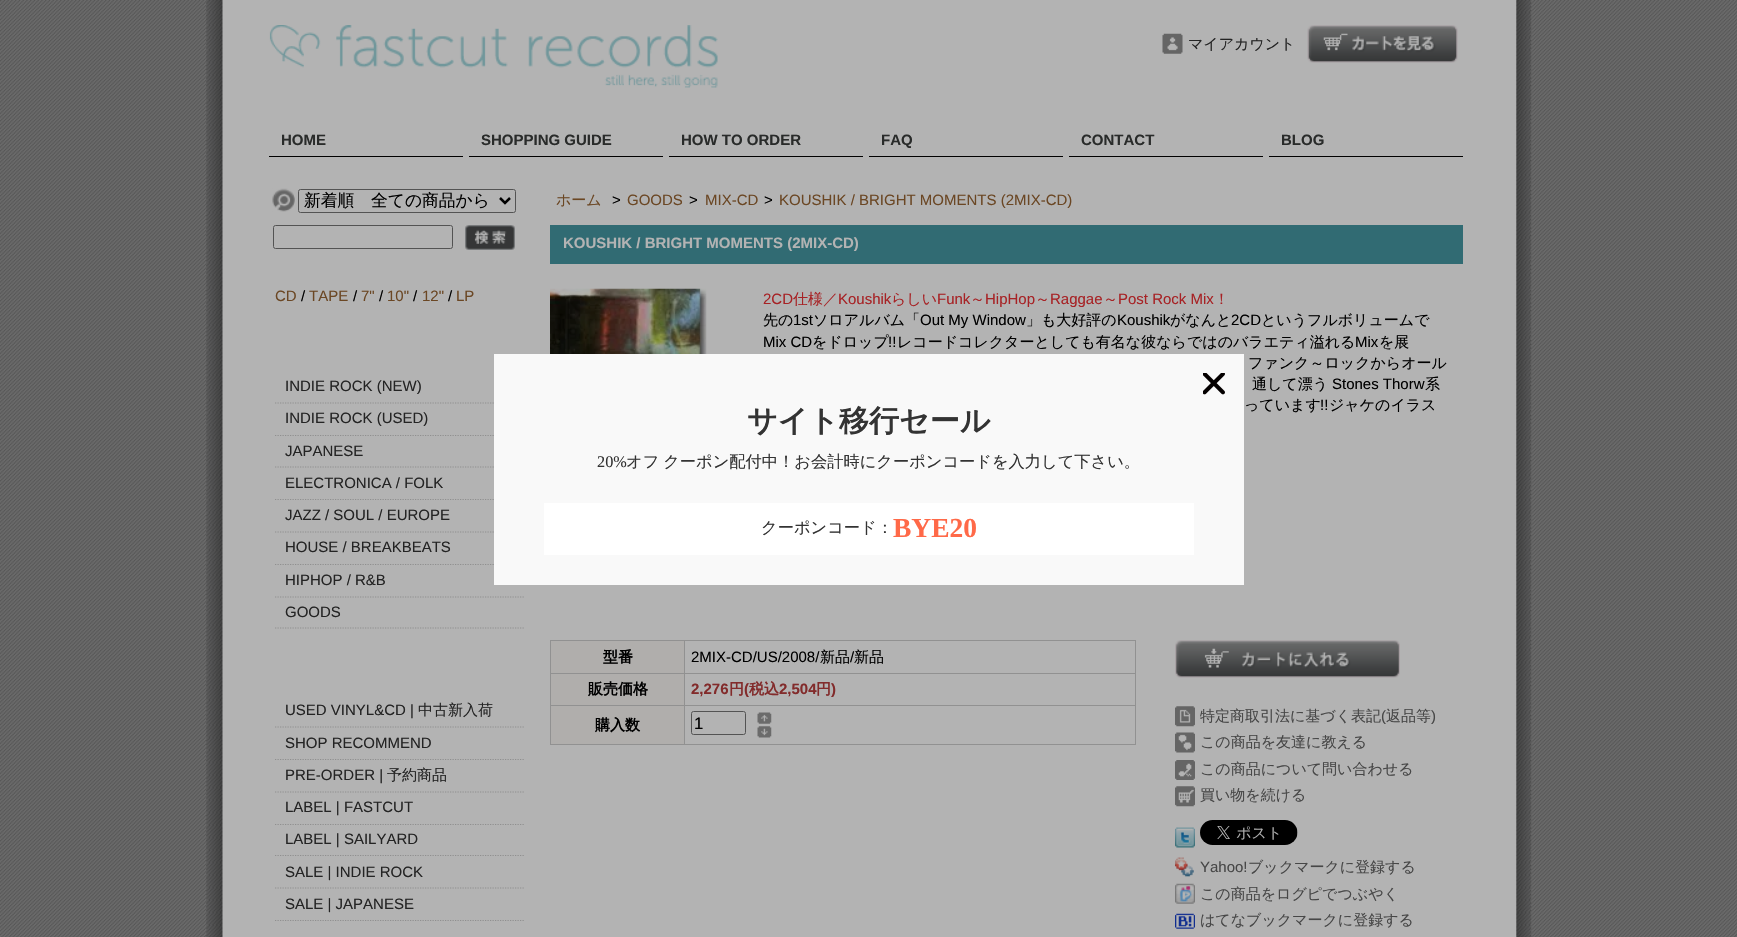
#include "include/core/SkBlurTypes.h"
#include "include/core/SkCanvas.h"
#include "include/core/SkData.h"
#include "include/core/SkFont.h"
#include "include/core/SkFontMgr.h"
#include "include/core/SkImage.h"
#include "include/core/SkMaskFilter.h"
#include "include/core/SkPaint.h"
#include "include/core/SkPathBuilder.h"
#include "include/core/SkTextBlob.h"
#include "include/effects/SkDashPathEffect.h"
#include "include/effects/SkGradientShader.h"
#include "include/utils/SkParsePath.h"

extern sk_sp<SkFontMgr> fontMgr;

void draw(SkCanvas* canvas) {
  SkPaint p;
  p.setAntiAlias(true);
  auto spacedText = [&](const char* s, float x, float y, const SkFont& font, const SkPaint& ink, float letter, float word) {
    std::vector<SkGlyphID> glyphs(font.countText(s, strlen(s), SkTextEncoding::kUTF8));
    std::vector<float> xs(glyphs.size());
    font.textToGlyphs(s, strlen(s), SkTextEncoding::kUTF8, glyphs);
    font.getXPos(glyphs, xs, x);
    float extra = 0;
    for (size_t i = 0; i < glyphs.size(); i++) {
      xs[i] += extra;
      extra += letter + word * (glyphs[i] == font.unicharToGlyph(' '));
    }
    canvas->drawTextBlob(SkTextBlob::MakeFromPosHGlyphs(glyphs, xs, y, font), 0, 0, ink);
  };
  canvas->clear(SK_ColorWHITE);
  canvas->drawImageRect(SkImages::DeferredFromEncodedData(SkData::MakeFromFileName("images/1.png")), SkRect::MakeLTRB(0, 0, 1737, 937), SkSamplingOptions());
  canvas->drawImageRect(SkImages::DeferredFromEncodedData(SkData::MakeFromFileName("images/2.png")), SkRect::MakeLTRB(206, 0, 1532, 937), SkSamplingOptions());
  canvas->drawImageRect(SkImages::DeferredFromEncodedData(SkData::MakeFromFileName("images/3.png")), SkRect::MakeLTRB(269, 25, 718, 88), SkSamplingOptions());
  canvas->drawImageRect(SkImages::DeferredFromEncodedData(SkData::MakeFromFileName("images/4.png")), SkRect::MakeLTRB(1162, 33, 1183, 54), SkSamplingOptions());
  canvas->drawImageRect(SkImages::DeferredFromEncodedData(SkData::MakeFromFileName("images/5.png")), SkRect::MakeLTRB(1307, 25, 1458, 63), SkSamplingOptions());
  p.setColor(SK_ColorBLACK);
  canvas->drawRect(SkRect::MakeLTRB(269, 156, 463, 157), p);
  canvas->drawRect(SkRect::MakeLTRB(469, 156, 663, 157), p);
  canvas->drawRect(SkRect::MakeLTRB(669, 156, 863, 157), p);
  canvas->drawRect(SkRect::MakeLTRB(869, 156, 1063, 157), p);
  canvas->drawRect(SkRect::MakeLTRB(1069, 156, 1263, 157), p);
  canvas->drawRect(SkRect::MakeLTRB(1269, 156, 1463, 157), p);
  canvas->drawImageRect(SkImages::DeferredFromEncodedData(SkData::MakeFromFileName("images/6.png")), SkRect::MakeLTRB(272, 188, 295, 212), SkSamplingOptions());
  p.setStyle(SkPaint::kStroke_Style);
  p.setStrokeWidth(1);
  p.setColor(SkColorSetRGB(83, 83, 83));
  canvas->drawRoundRect(SkRect::MakeLTRB(298.5f, 189.5f, 515.5f, 212.5f), 2, 2, p);
  p.setStrokeWidth(2.5f);
  p.setColor(SK_ColorBLACK);
  canvas->drawPath(SkPathBuilder().moveTo(500, 198).lineTo(505, 203).lineTo(510, 198).detach(), p);
  p.setStrokeWidth(1);
  p.setColor(SkColorSetRGB(83, 83, 83));
  canvas->drawRoundRect(SkRect::MakeLTRB(273.5f, 225.5f, 452.5f, 248.5f), 2, 2, p);
  canvas->drawImageRect(SkImages::DeferredFromEncodedData(SkData::MakeFromFileName("images/7.png")), SkRect::MakeLTRB(465, 225, 515, 250), SkSamplingOptions());
  p.setStrokeWidth(1.2f);
  p.setColor(SkColorSetRGB(143, 143, 143));
  p.setPathEffect(SkDashPathEffect::Make({{1.25f, 1.25f}}, 0));
  canvas->drawPath(SkPathBuilder().moveTo(275, 403).lineTo(525, 403).detach(), p);
  p.setPathEffect(nullptr);
  p.setPathEffect(SkDashPathEffect::Make({{1.25f, 1.25f}}, 0));
  canvas->drawPath(SkPathBuilder().moveTo(275, 435.5f).lineTo(525, 435.5f).detach(), p);
  p.setPathEffect(nullptr);
  p.setPathEffect(SkDashPathEffect::Make({{1.25f, 1.25f}}, 0));
  canvas->drawPath(SkPathBuilder().moveTo(275, 467).lineTo(525, 467).detach(), p);
  p.setPathEffect(nullptr);
  p.setPathEffect(SkDashPathEffect::Make({{1.25f, 1.25f}}, 0));
  canvas->drawPath(SkPathBuilder().moveTo(275, 499.5f).lineTo(525, 499.5f).detach(), p);
  p.setPathEffect(nullptr);
  p.setPathEffect(SkDashPathEffect::Make({{1.25f, 1.25f}}, 0));
  canvas->drawPath(SkPathBuilder().moveTo(275, 532).lineTo(525, 532).detach(), p);
  p.setPathEffect(nullptr);
  p.setPathEffect(SkDashPathEffect::Make({{1.25f, 1.25f}}, 0));
  canvas->drawPath(SkPathBuilder().moveTo(275, 564.5f).lineTo(525, 564.5f).detach(), p);
  p.setPathEffect(nullptr);
  p.setPathEffect(SkDashPathEffect::Make({{1.25f, 1.25f}}, 0));
  canvas->drawPath(SkPathBuilder().moveTo(275, 597).lineTo(525, 597).detach(), p);
  p.setPathEffect(nullptr);
  p.setPathEffect(SkDashPathEffect::Make({{1.25f, 1.25f}}, 0));
  canvas->drawPath(SkPathBuilder().moveTo(275, 628).lineTo(525, 628).detach(), p);
  p.setPathEffect(nullptr);
  p.setPathEffect(SkDashPathEffect::Make({{1.25f, 1.25f}}, 0));
  canvas->drawPath(SkPathBuilder().moveTo(275, 727).lineTo(525, 727).detach(), p);
  p.setPathEffect(nullptr);
  p.setPathEffect(SkDashPathEffect::Make({{1.25f, 1.25f}}, 0));
  canvas->drawPath(SkPathBuilder().moveTo(275, 759.5f).lineTo(525, 759.5f).detach(), p);
  p.setPathEffect(nullptr);
  p.setPathEffect(SkDashPathEffect::Make({{1.25f, 1.25f}}, 0));
  canvas->drawPath(SkPathBuilder().moveTo(275, 792).lineTo(525, 792).detach(), p);
  p.setPathEffect(nullptr);
  p.setPathEffect(SkDashPathEffect::Make({{1.25f, 1.25f}}, 0));
  canvas->drawPath(SkPathBuilder().moveTo(275, 824.5f).lineTo(525, 824.5f).detach(), p);
  p.setPathEffect(nullptr);
  p.setPathEffect(SkDashPathEffect::Make({{1.25f, 1.25f}}, 0));
  canvas->drawPath(SkPathBuilder().moveTo(275, 855.5f).lineTo(525, 855.5f).detach(), p);
  p.setPathEffect(nullptr);
  p.setPathEffect(SkDashPathEffect::Make({{1.25f, 1.25f}}, 0));
  canvas->drawPath(SkPathBuilder().moveTo(275, 888).lineTo(525, 888).detach(), p);
  p.setPathEffect(nullptr);
  p.setPathEffect(SkDashPathEffect::Make({{1.25f, 1.25f}}, 0));
  canvas->drawPath(SkPathBuilder().moveTo(275, 920.5f).lineTo(525, 920.5f).detach(), p);
  p.setPathEffect(nullptr);
  p.setStyle(SkPaint::kFill_Style);
  p.setColor(SkColorSetRGB(49, 107, 115));
  canvas->drawRect(SkRect::MakeLTRB(550, 225, 1463, 264), p);
  canvas->drawImageRect(SkImages::DeferredFromEncodedData(SkData::MakeFromFileName("images/8.png")), SkRect::MakeLTRB(550, 288, 707, 354), SkSamplingOptions());
  p.setColor(SkColorSetRGB(145, 145, 145));
  canvas->drawRect(SkRect::MakeLTRB(550, 640, 1136, 641), p);
  canvas->drawRect(SkRect::MakeLTRB(550, 640, 551, 745), p);
  p.setColor(SkColorSetRGB(176, 174, 172));
  canvas->drawRect(SkRect::MakeLTRB(551, 641, 684, 673), p);
  p.setColor(SkColorSetRGB(145, 145, 145));
  canvas->drawRect(SkRect::MakeLTRB(684, 641, 685, 745), p);
  canvas->drawRect(SkRect::MakeLTRB(551, 673, 685, 674), p);
  canvas->drawRect(SkRect::MakeLTRB(1135, 641, 1136, 745), p);
  canvas->drawRect(SkRect::MakeLTRB(685, 673, 1136, 674), p);
  p.setColor(SkColorSetRGB(176, 174, 172));
  canvas->drawRect(SkRect::MakeLTRB(551, 674, 684, 705), p);
  p.setColor(SkColorSetRGB(145, 145, 145));
  canvas->drawRect(SkRect::MakeLTRB(551, 705, 1136, 706), p);
  p.setColor(SkColorSetRGB(176, 174, 172));
  canvas->drawRect(SkRect::MakeLTRB(551, 706, 684, 744), p);
  p.setColor(SkColorSetRGB(145, 145, 145));
  canvas->drawRect(SkRect::MakeLTRB(551, 744, 1136, 745), p);
  p.setStyle(SkPaint::kStroke_Style);
  p.setStrokeWidth(1);
  p.setColor(SkColorSetRGB(83, 83, 83));
  canvas->drawRoundRect(SkRect::MakeLTRB(691.5f, 711.5f, 745.5f, 734.5f), 2, 2, p);
  canvas->drawImageRect(SkImages::DeferredFromEncodedData(SkData::MakeFromFileName("images/9.png")), SkRect::MakeLTRB(757, 712, 772, 724), SkSamplingOptions());
  canvas->drawImageRect(SkImages::DeferredFromEncodedData(SkData::MakeFromFileName("images/10.png")), SkRect::MakeLTRB(757, 726, 772, 738), SkSamplingOptions());
  canvas->drawImageRect(SkImages::DeferredFromEncodedData(SkData::MakeFromFileName("images/11.png")), SkRect::MakeLTRB(1175, 640, 1400, 678), SkSamplingOptions());
  canvas->drawImageRect(SkImages::DeferredFromEncodedData(SkData::MakeFromFileName("images/12.png")), SkRect::MakeLTRB(1175, 706, 1195, 727), SkSamplingOptions());
  canvas->drawImageRect(SkImages::DeferredFromEncodedData(SkData::MakeFromFileName("images/13.png")), SkRect::MakeLTRB(1175, 732, 1195, 753), SkSamplingOptions());
  canvas->drawImageRect(SkImages::DeferredFromEncodedData(SkData::MakeFromFileName("images/14.png")), SkRect::MakeLTRB(1175, 760, 1195, 780), SkSamplingOptions());
  canvas->drawImageRect(SkImages::DeferredFromEncodedData(SkData::MakeFromFileName("images/15.png")), SkRect::MakeLTRB(1175, 786, 1195, 807), SkSamplingOptions());
  canvas->drawImageRect(SkImages::DeferredFromEncodedData(SkData::MakeFromFileName("images/16.png")), SkRect::MakeLTRB(1175, 827, 1195, 848), SkSamplingOptions());
  canvas->drawImageRect(SkImages::DeferredFromEncodedData(SkData::MakeFromFileName("images/17.png")), SkRect::MakeLTRB(1200, 820, 1298, 845), SkSamplingOptions());
  canvas->drawImageRect(SkImages::DeferredFromEncodedData(SkData::MakeFromFileName("images/18.png")), SkRect::MakeLTRB(1175, 857, 1194, 877), SkSamplingOptions());
  canvas->drawImageRect(SkImages::DeferredFromEncodedData(SkData::MakeFromFileName("images/19.png")), SkRect::MakeLTRB(1175, 883, 1195, 904), SkSamplingOptions());
  canvas->drawImageRect(SkImages::DeferredFromEncodedData(SkData::MakeFromFileName("images/20.png")), SkRect::MakeLTRB(1175, 913, 1195, 929), SkSamplingOptions());
  p.setStyle(SkPaint::kFill_Style);
  p.setColor(SkColorSetRGB(249, 249, 249));
  canvas->drawRect(SkRect::MakeLTRB(494, 354, 1244, 585), p);
  canvas->drawImageRect(SkImages::DeferredFromEncodedData(SkData::MakeFromFileName("images/21.png")), SkRect::MakeLTRB(1203, 373, 1225, 395), SkSamplingOptions());
  p.setColor(SK_ColorWHITE);
  canvas->drawRect(SkRect::MakeLTRB(544, 503, 1194, 555), p);
  SkFont font1(fontMgr->matchFamilyStyle("WenQuanYi Zen Hei", SkFontStyle(500, SkFontStyle::kNormal_Width, SkFontStyle::kUpright_Slant)), 15);
  font1.setSubpixel(true);
  p.setColor(SkColorSetRGB(36, 36, 36));
  canvas->drawString("マイアカウント", 1188, 49, font1, p);
  SkFont font2(fontMgr->matchFamilyStyle("Liberation Sans", SkFontStyle::Bold()), 15);
  font2.setSubpixel(true);
  p.setColor(SkColorSetRGB(41, 43, 42));
  canvas->drawString("HOME", 281, 145, font2, p);
  canvas->drawString("SHOPPING GUIDE", 481, 145, font2, p);
  canvas->drawString("HOW TO ORDER", 681, 145, font2, p);
  canvas->drawString("FAQ", 881, 145, font2, p);
  canvas->drawString("CONTACT", 1081, 145, font2, p);
  canvas->drawString("BLOG", 1281, 145, font2, p);
  SkFont font3(fontMgr->matchFamilyStyle("WenQuanYi Zen Hei", SkFontStyle(500, SkFontStyle::kNormal_Width, SkFontStyle::kUpright_Slant)), 16.75f);
  font3.setSubpixel(true);
  p.setColor(SK_ColorBLACK);
  canvas->drawString("新着順　全ての商品から", 304, 206, font3, p);
  SkFont font4(fontMgr->matchFamilyStyle("Liberation Sans", SkFontStyle::Normal()), 15);
  font4.setSubpixel(true);
  p.setColor(SkColorSetRGB(107, 71, 36));
  canvas->drawString("CD", 275, 301, font4, p);
  p.setColor(SK_ColorBLACK);
  canvas->drawString("/", 301, 301, font4, p);
  p.setColor(SkColorSetRGB(107, 71, 36));
  canvas->drawString("TAPE", 309, 301, font4, p);
  p.setColor(SK_ColorBLACK);
  canvas->drawString("/", 353, 301, font4, p);
  p.setColor(SkColorSetRGB(107, 71, 36));
  canvas->drawString("7\"", 361, 301, font4, p);
  p.setColor(SK_ColorBLACK);
  canvas->drawString("/", 379, 301, font4, p);
  p.setColor(SkColorSetRGB(107, 71, 36));
  canvas->drawString("10\"", 387, 301, font4, p);
  p.setColor(SK_ColorBLACK);
  canvas->drawString("/", 413, 301, font4, p);
  p.setColor(SkColorSetRGB(107, 71, 36));
  canvas->drawString("12\"", 422, 301, font4, p);
  p.setColor(SK_ColorBLACK);
  canvas->drawString("/", 448, 301, font4, p);
  p.setColor(SkColorSetRGB(107, 71, 36));
  canvas->drawString("LP", 456, 301, font4, p);
  p.setColor(SkColorSetRGB(36, 36, 36));
  canvas->drawString("INDIE ROCK (NEW)", 285, 391, font4, p);
  canvas->drawString("INDIE ROCK (USED)", 285, 423, font4, p);
  canvas->drawString("JAPANESE", 285, 456, font4, p);
  canvas->drawString("ELECTRONICA / FOLK", 285, 488, font4, p);
  canvas->drawString("JAZZ / SOUL / EUROPE", 285, 520, font4, p);
  canvas->drawString("HOUSE / BREAKBEATS", 285, 552, font4, p);
  canvas->drawString("HIPHOP / R&B", 285, 585, font4, p);
  canvas->drawString("GOODS", 285, 617, font4, p);
  canvas->drawString("USED VINYL&CD |", 285, 715, font4, p);
  canvas->drawString("中古新入荷", 418, 715, font1, p);
  canvas->drawString("SHOP RECOMMEND", 285, 748, font4, p);
  canvas->drawString("PRE-ORDER |", 285, 780, font4, p);
  canvas->drawString("予約商品", 387, 780, font1, p);
  canvas->drawString("LABEL | FASTCUT", 285, 812, font4, p);
  canvas->drawString("LABEL | SAILYARD", 285, 844, font4, p);
  canvas->drawString("SALE | INDIE ROCK", 285, 877, font4, p);
  canvas->drawString("SALE | JAPANESE", 285, 909, font4, p);
  p.setColor(SkColorSetRGB(107, 71, 36));
  canvas->drawString("ホーム", 556, 205, font1, p);
  p.setColor(SK_ColorBLACK);
  canvas->drawString(">", 612, 205, font4, p);
  p.setColor(SkColorSetRGB(107, 71, 36));
  canvas->drawString("GOODS", 627, 205, font4, p);
  p.setColor(SK_ColorBLACK);
  canvas->drawString(">", 689, 205, font4, p);
  p.setColor(SkColorSetRGB(107, 71, 36));
  canvas->drawString("MIX-CD", 705, 205, font4, p);
  p.setColor(SK_ColorBLACK);
  canvas->drawString(">", 764, 205, font4, p);
  p.setColor(SkColorSetRGB(107, 71, 36));
  canvas->drawString("KOUSHIK / BRIGHT MOMENTS (2MIX-CD)", 779, 205, font4, p);
  p.setColor(SkColorSetRGB(179, 179, 179));
  canvas->drawString("KOUSHIK / BRIGHT MOMENTS (2MIX-CD)", 563, 248, font2, p);
  p.setColor(SkColorSetRGB(167, 34, 37));
  canvas->drawString("2CD", 763, 304, font4, p);
  canvas->drawString("仕様／", 793, 304, font1, p);
  canvas->drawString("Koushik", 838, 304, font4, p);
  canvas->drawString("らしい", 891, 304, font1, p);
  canvas->drawString("Funk", 937, 304, font4, p);
  canvas->drawString("～", 970, 304, font1, p);
  canvas->drawString("HipHop", 985, 304, font4, p);
  canvas->drawString("～", 1035, 304, font1, p);
  canvas->drawString("Raggae", 1050, 304, font4, p);
  canvas->drawString("～", 1103, 304, font1, p);
  canvas->drawString("Post Rock Mix", 1118, 304, font4, p);
  canvas->drawString("！", 1214, 304, font1, p);
  p.setColor(SK_ColorBLACK);
  canvas->drawString("先の", 763, 325, font1, p);
  canvas->drawString("1st", 793, 325, font4, p);
  canvas->drawString("ソロアルバム「", 813, 325, font1, p);
  canvas->drawString("Out My Window", 920, 325, font4, p);
  canvas->drawString("」も大好評の", 1026, 325, font1, p);
  canvas->drawString("Koushik", 1117, 325, font4, p);
  canvas->drawString("がなんと", 1170, 325, font1, p);
  canvas->drawString("2CD", 1231, 325, font4, p);
  canvas->drawString("というフルボリュームで", 1261, 325, font1, p);
  canvas->drawString("Mix CD", 763, 347, font4, p);
  canvas->drawString("をドロップ", 812, 347, font1, p);
  canvas->drawString("!!", 888, 347, font4, p);
  canvas->drawString("レコードコレクターとしても有名な彼ならではのバラエティ溢れる", 897, 347, font1, p);
  canvas->drawString("Mix", 1355, 347, font4, p);
  canvas->drawString("を展", 1379, 347, font1, p);
  canvas->drawString("ファンク～ロックからオール", 1248, 368, font1, p);
  canvas->drawString("通して漂う", 1252, 389, font1, p);
  canvas->drawString("Stones Thorw", 1332, 389, font4, p);
  canvas->drawString("系", 1425, 389, font1, p);
  canvas->drawString("っています", 1244, 410, font1, p);
  canvas->drawString("!!", 1320, 410, font4, p);
  canvas->drawString("ジャケのイラス", 1329, 410, font1, p);
  SkFont font5(fontMgr->matchFamilyStyle("WenQuanYi Zen Hei", SkFontStyle::Bold()), 15);
  font5.setSubpixel(true);
  canvas->drawString("型番", 603, 662, font5, p);
  canvas->drawString("2MIX-CD/US/2008/", 691, 662, font4, p);
  canvas->drawString("新品", 820, 662, font1, p);
  canvas->drawString("/", 850, 662, font4, p);
  canvas->drawString("新品", 854, 662, font1, p);
  canvas->drawString("販売価格", 588, 694, font5, p);
  p.setColor(SkColorSetRGB(130, 43, 43));
  canvas->drawString("2,276", 691, 694, font2, p);
  canvas->drawString("円", 729, 694, font5, p);
  canvas->drawString("(", 744, 694, font2, p);
  canvas->drawString("税込", 749, 694, font5, p);
  canvas->drawString("2,504", 779, 694, font2, p);
  canvas->drawString("円", 816, 694, font5, p);
  canvas->drawString(")", 831, 694, font2, p);
  p.setColor(SK_ColorBLACK);
  canvas->drawString("購入数", 595, 730, font5, p);
  SkFont font6(fontMgr->matchFamilyStyle("Liberation Sans", SkFontStyle::Normal()), 16.75f);
  font6.setSubpixel(true);
  canvas->drawString("1", 694, 729, font6, p);
  p.setColor(SkColorSetRGB(71, 71, 71));
  canvas->drawString("特定商取引法に基づく表記", 1200, 721, font1, p);
  canvas->drawString("(", 1381, 721, font4, p);
  canvas->drawString("返品等", 1386, 721, font1, p);
  canvas->drawString(")", 1431, 721, font4, p);
  canvas->drawString("この商品を友達に教える", 1200, 747, font1, p);
  canvas->drawString("この商品について問い合わせる", 1200, 774, font1, p);
  canvas->drawString("買い物を続ける", 1200, 800, font1, p);
  canvas->drawString("Yahoo!", 1200, 872, font4, p);
  canvas->drawString("ブックマークに登録する", 1248, 872, font1, p);
  canvas->drawString("この商品をログピでつぶやく", 1200, 899, font1, p);
  canvas->drawString("はてなブックマークに登録する", 1200, 925, font1, p);
  SkFont font7(fontMgr->matchFamilyStyle("WenQuanYi Zen Hei", SkFontStyle::Bold()), 30);
  font7.setSubpixel(true);
  p.setColor(SkColorSetRGB(51, 51, 51));
  canvas->drawString("サイト移行セール", 747, 431, font7, p);
  SkFont font8(fontMgr->matchFamilyStyle("Liberation Serif", SkFontStyle::Normal()), 16.25f);
  font8.setSubpixel(true);
  canvas->drawString("20%", 597, 467, font8, p);
  SkFont font9(fontMgr->matchFamilyStyle("WenQuanYi Zen Hei", SkFontStyle(500, SkFontStyle::kNormal_Width, SkFontStyle::kUpright_Slant)), 16.25f);
  font9.setSubpixel(true);
  spacedText("オフ クーポン配付中！お会計時にクーポンコードを入力して下さい。", 626, 467, font9, p, 0, -1);
  canvas->drawString("クーポンコード：", 761, 533, font9, p);
  SkFont font10(fontMgr->matchFamilyStyle("Liberation Serif", SkFontStyle::Bold()), 27.5f);
  font10.setSubpixel(true);
  p.setColor(SkColorSetRGB(255, 105, 72));
  canvas->drawString("BYE20", 893, 537, font10, p);
}
